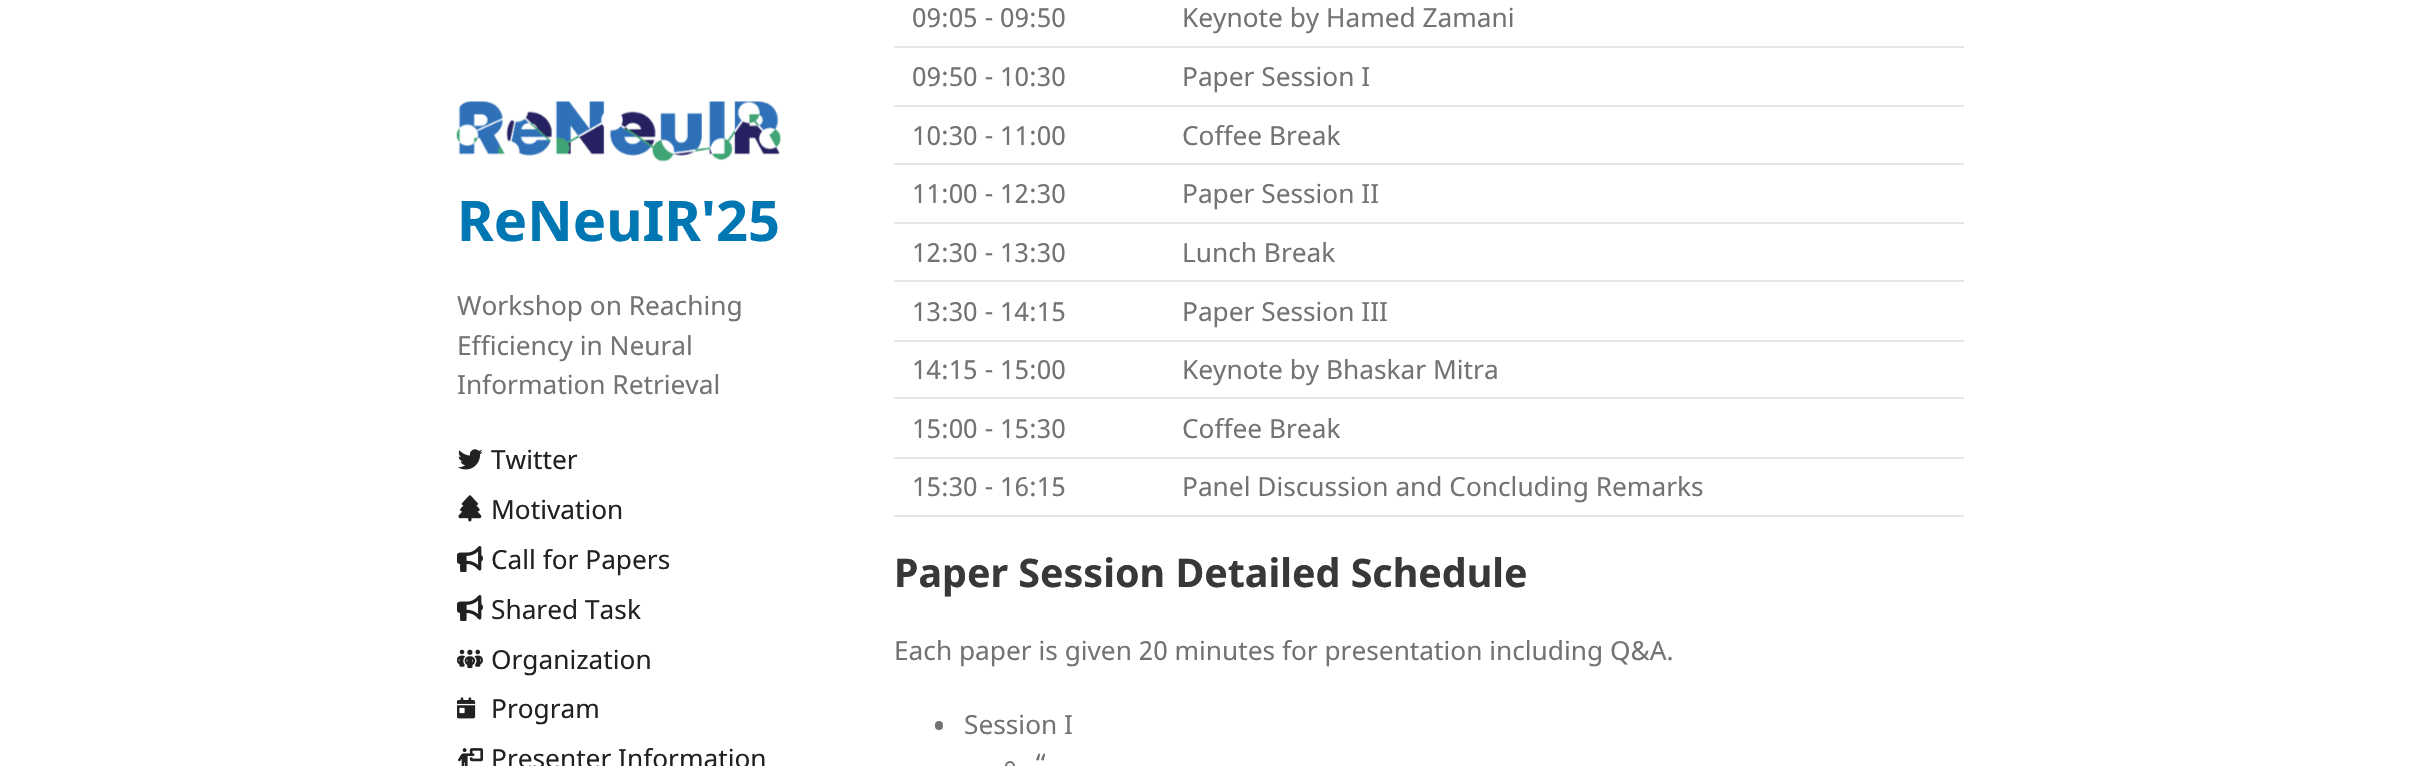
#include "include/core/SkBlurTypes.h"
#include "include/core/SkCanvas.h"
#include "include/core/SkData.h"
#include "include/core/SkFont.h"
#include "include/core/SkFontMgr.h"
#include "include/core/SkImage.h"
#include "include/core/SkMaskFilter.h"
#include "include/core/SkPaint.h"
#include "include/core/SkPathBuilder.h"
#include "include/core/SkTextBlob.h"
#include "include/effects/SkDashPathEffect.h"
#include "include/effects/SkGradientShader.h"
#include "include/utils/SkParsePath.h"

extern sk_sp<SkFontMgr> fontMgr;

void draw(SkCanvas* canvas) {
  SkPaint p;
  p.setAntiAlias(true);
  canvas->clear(SK_ColorWHITE);
  canvas->drawImageRect(SkImages::DeferredFromEncodedData(SkData::MakeFromFileName("images/1.png")), SkRect::MakeLTRB(456, 101, 781, 162), SkSamplingOptions());
  canvas->drawImageRect(SkImages::DeferredFromEncodedData(SkData::MakeFromFileName("images/2.png")), SkRect::MakeLTRB(458, 449, 483, 470), SkSamplingOptions());
  canvas->drawImageRect(SkImages::DeferredFromEncodedData(SkData::MakeFromFileName("images/3.png")), SkRect::MakeLTRB(458, 495, 482, 522), SkSamplingOptions());
  canvas->drawImageRect(SkImages::DeferredFromEncodedData(SkData::MakeFromFileName("images/4.png")), SkRect::MakeLTRB(457, 546, 483, 572), SkSamplingOptions());
  canvas->drawImageRect(SkImages::DeferredFromEncodedData(SkData::MakeFromFileName("images/4.png")), SkRect::MakeLTRB(457, 595, 483, 621), SkSamplingOptions());
  canvas->drawImageRect(SkImages::DeferredFromEncodedData(SkData::MakeFromFileName("images/5.png")), SkRect::MakeLTRB(457, 649, 483, 669), SkSamplingOptions());
  canvas->drawImageRect(SkImages::DeferredFromEncodedData(SkData::MakeFromFileName("images/6.png")), SkRect::MakeLTRB(457, 697, 476, 719), SkSamplingOptions());
  canvas->drawImageRect(SkImages::DeferredFromEncodedData(SkData::MakeFromFileName("images/7.png")), SkRect::MakeLTRB(458, 748, 483, 766), SkSamplingOptions());
  p.setColor(SkColorSetRGB(230, 230, 230));
  canvas->drawRect(SkRect::MakeLTRB(894, 46, 1964, 48), p);
  canvas->drawRect(SkRect::MakeLTRB(894, 105, 1964, 107), p);
  canvas->drawRect(SkRect::MakeLTRB(894, 163, 1964, 165), p);
  canvas->drawRect(SkRect::MakeLTRB(894, 222, 1964, 224), p);
  canvas->drawRect(SkRect::MakeLTRB(894, 280, 1964, 282), p);
  canvas->drawRect(SkRect::MakeLTRB(894, 340, 1964, 342), p);
  canvas->drawRect(SkRect::MakeLTRB(894, 397, 1964, 399), p);
  canvas->drawRect(SkRect::MakeLTRB(894, 457, 1964, 459), p);
  canvas->drawRect(SkRect::MakeLTRB(894, 515, 1964, 517), p);
  p.setColor(SkColorSetRGB(115, 115, 115));
  canvas->drawRoundRect(SkRect::MakeLTRB(935, 721, 943, 730), 4, 4, p);
  p.setStyle(SkPaint::kStroke_Style);
  p.setStrokeWidth(2);
  canvas->drawRoundRect(SkRect::MakeLTRB(1006, 762, 1014, 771), 4, 4, p);
  SkFont font1(fontMgr->matchFamilyStyle("Noto Sans", SkFontStyle::Bold()), 56);
  font1.setSubpixel(true);
  p.setStyle(SkPaint::kFill_Style);
  p.setColor(SkColorSetRGB(0, 119, 179));
  canvas->drawString("ReNeuIR'25", 457, 241, font1, p);
  SkFont font2(fontMgr->matchFamilyStyle("Noto Sans", SkFontStyle::Normal()), 26.25f);
  font2.setSubpixel(true);
  p.setColor(SkColorSetRGB(115, 115, 115));
  canvas->drawString("Workshop on Reaching", 457, 315, font2, p);
  canvas->drawString("Efficiency in Neural", 457, 355, font2, p);
  canvas->drawString("Information Retrieval", 457, 394, font2, p);
  p.setColor(SkColorSetRGB(33, 33, 33));
  canvas->drawString("Twitter", 491, 469, font2, p);
  canvas->drawString("Motivation", 491, 519, font2, p);
  canvas->drawString("Call for Papers", 491, 569, font2, p);
  canvas->drawString("Shared Task", 491, 619, font2, p);
  canvas->drawString("Organization", 491, 669, font2, p);
  canvas->drawString("Program", 491, 718, font2, p);
  canvas->drawString("Presenter Information", 491, 768, font2, p);
  p.setColor(SkColorSetRGB(115, 115, 115));
  canvas->drawString("09:05 - 09:50", 912, 27, font2, p);
  canvas->drawString("Keynote by Hamed Zamani", 1182, 27, font2, p);
  canvas->drawString("09:50 - 10:30", 912, 86, font2, p);
  canvas->drawString("Paper Session I", 1182, 86, font2, p);
  canvas->drawString("10:30 - 11:00", 912, 145, font2, p);
  canvas->drawString("Coffee Break", 1182, 145, font2, p);
  canvas->drawString("11:00 - 12:30", 912, 203, font2, p);
  canvas->drawString("Paper Session II", 1182, 203, font2, p);
  canvas->drawString("12:30 - 13:30", 912, 262, font2, p);
  canvas->drawString("Lunch Break", 1182, 262, font2, p);
  canvas->drawString("13:30 - 14:15", 912, 321, font2, p);
  canvas->drawString("Paper Session III", 1182, 321, font2, p);
  canvas->drawString("14:15 - 15:00", 912, 379, font2, p);
  canvas->drawString("Keynote by Bhaskar Mitra", 1182, 379, font2, p);
  canvas->drawString("15:00 - 15:30", 912, 438, font2, p);
  canvas->drawString("Coffee Break", 1182, 438, font2, p);
  canvas->drawString("15:30 - 16:15", 912, 496, font2, p);
  canvas->drawString("Panel Discussion and Concluding Remarks", 1182, 496, font2, p);
  SkFont font3(fontMgr->matchFamilyStyle("Noto Sans", SkFontStyle::Bold()), 39.4f);
  font3.setSubpixel(true);
  p.setColor(SkColorSetRGB(56, 56, 56));
  canvas->drawString("Paper Session Detailed Schedule", 894, 587, font3, p);
  p.setColor(SkColorSetRGB(115, 115, 115));
  canvas->drawString("Each paper is given 20 minutes for presentation including Q&A.", 894, 660, font2, p);
  canvas->drawString("Session I", 964, 734, font2, p);
  canvas->drawString("“", 1034, 773, font2, p);
}
